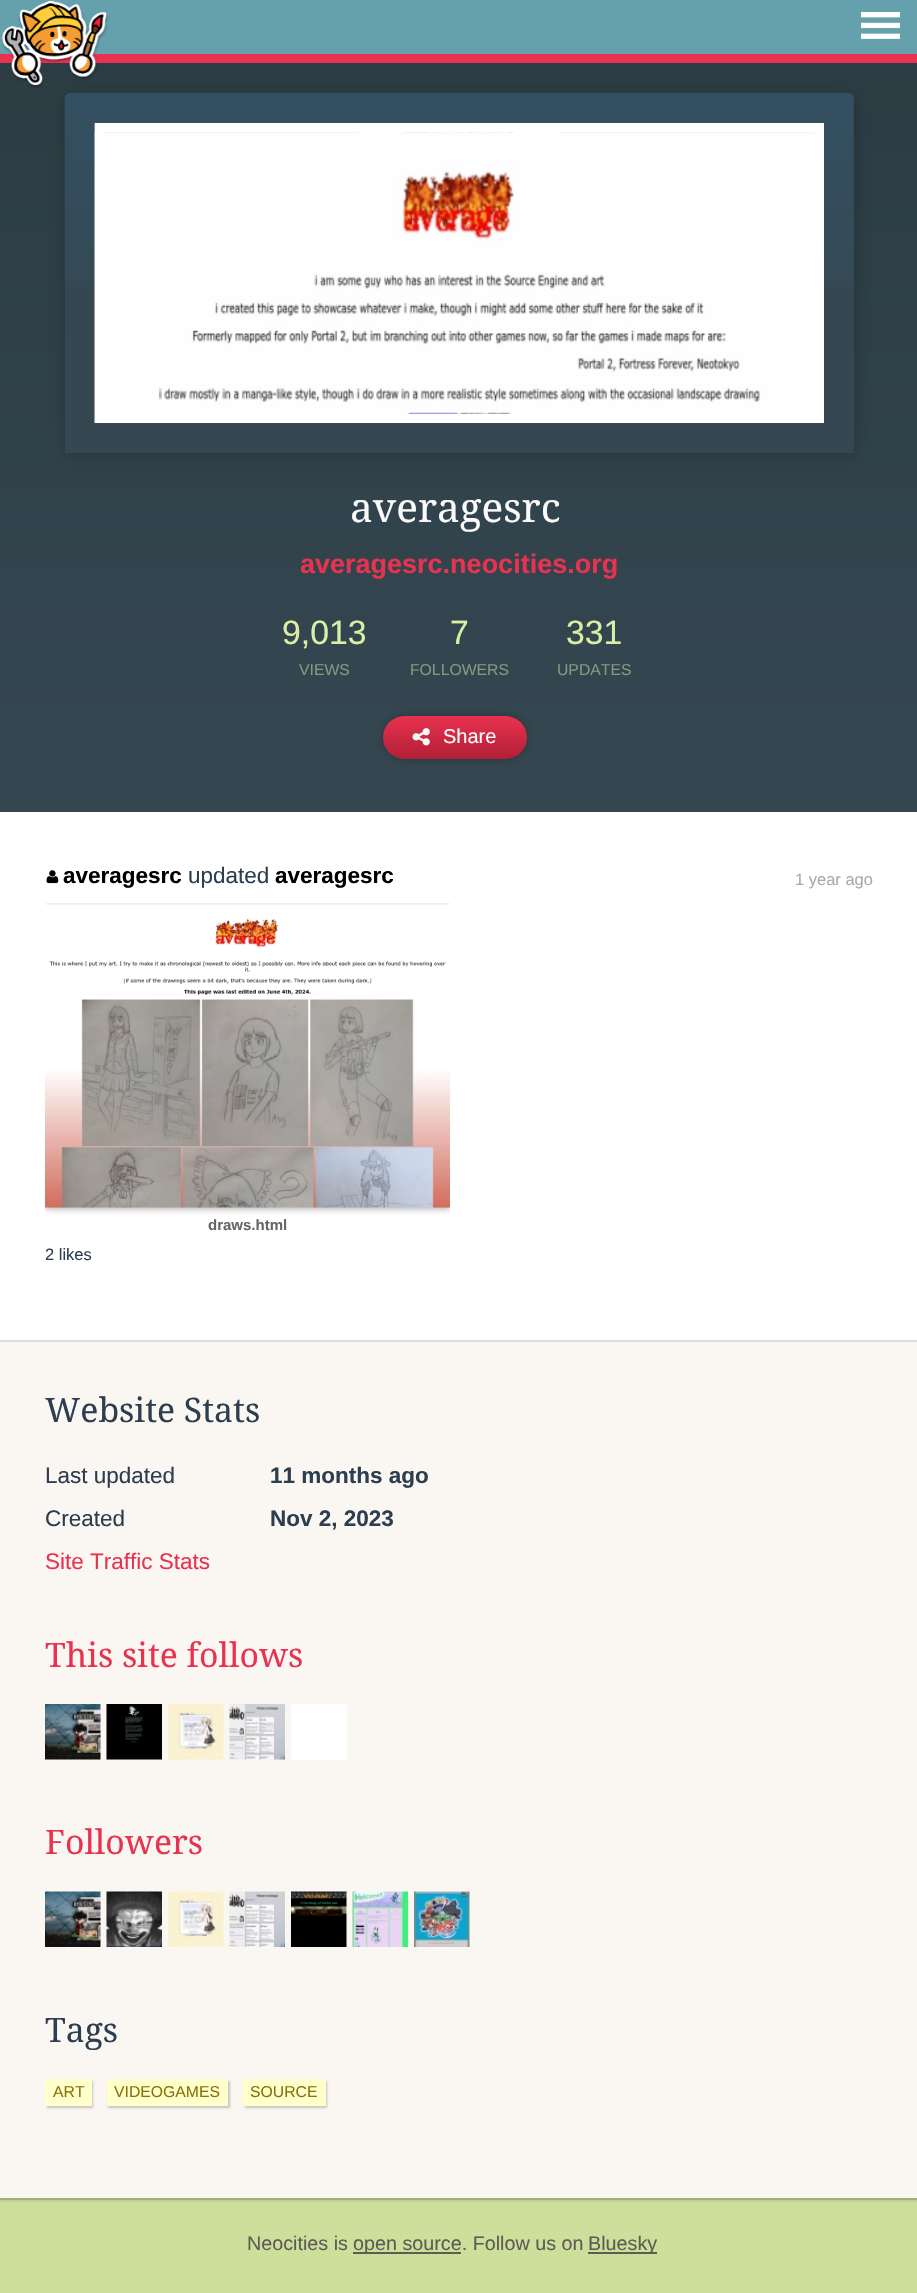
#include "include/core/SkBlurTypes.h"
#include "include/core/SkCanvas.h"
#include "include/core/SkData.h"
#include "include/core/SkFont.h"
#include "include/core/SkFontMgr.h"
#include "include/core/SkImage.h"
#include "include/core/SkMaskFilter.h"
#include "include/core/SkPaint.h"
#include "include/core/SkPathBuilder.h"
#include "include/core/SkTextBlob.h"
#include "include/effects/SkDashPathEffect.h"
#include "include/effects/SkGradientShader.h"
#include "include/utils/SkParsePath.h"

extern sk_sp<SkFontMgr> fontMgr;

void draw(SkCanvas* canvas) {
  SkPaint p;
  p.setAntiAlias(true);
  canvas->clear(SkColorSetRGB(204, 223, 155));
  p.setColor(SkColorSetRGB(101, 160, 173));
  canvas->drawRect(SkRect::MakeLTRB(0, 0, 917, 54), p);
  p.setColor(SkColorSetRGB(233, 50, 80));
  canvas->drawRect(SkRect::MakeLTRB(0, 54, 917, 63), p);
  {
    const SkColor colors[] = {SkColorSetRGB(43, 60, 67), SkColorSetRGB(53, 71, 81)};
    const float stops[] = {0, 1};
    const SkPoint ends[] = {{459, 33}, {459, 812}};
    p.setShader(SkGradientShader::MakeLinear(ends, colors, stops, 2, SkTileMode::kClamp));
    p.setAlpha(255);
  }
  canvas->drawRect(SkRect::MakeLTRB(0, 63, 917, 812), p);
  p.setShader(nullptr);
  p.setColor(SkColorSetARGB(38, 0, 0, 0));
  p.setMaskFilter(SkMaskFilter::MakeBlur(kNormal_SkBlurStyle, 9));
  canvas->drawRoundRect(SkRect::MakeLTRB(63, 93, 858, 459), 9, 9, p);
  p.setMaskFilter(nullptr);
  canvas->drawImageRect(SkImages::DeferredFromEncodedData(SkData::MakeFromFileName("images/1.png")), SkRect::MakeLTRB(1, 0, 109, 88), SkSamplingOptions());
  canvas->drawImageRect(SkImages::DeferredFromEncodedData(SkData::MakeFromFileName("images/2.png")), SkRect::MakeLTRB(861, 12, 900, 39), SkSamplingOptions());
  p.setColor(SkColorSetRGB(53, 71, 81));
  canvas->drawPath(SkPathBuilder().moveTo(71, 93).lineTo(848, 93).cubicTo(851.5f, 93, 854, 95.5f, 854, 99).lineTo(854, 453).lineTo(65, 453).lineTo(65, 99).cubicTo(65, 95.5f, 67.5f, 93, 71, 93).close().detach(), p);
  canvas->drawImageRect(SkImages::DeferredFromEncodedData(SkData::MakeFromFileName("images/3.png")), SkRect::MakeLTRB(64, 93, 854, 283), SkSamplingOptions());
  canvas->drawImageRect(SkImages::DeferredFromEncodedData(SkData::MakeFromFileName("images/4.png")), SkRect::MakeLTRB(94, 123, 815, 423), SkSamplingOptions());
  p.setStyle(SkPaint::kStroke_Style);
  p.setStrokeWidth(9);
  p.setColor(SK_ColorWHITE);
  canvas->drawRect(SkRect::MakeLTRB(99.5f, 127.5f, 819.5f, 418.5f), p);
  p.setStyle(SkPaint::kFill_Style);
  p.setColor(SkColorSetARGB(64, 0, 0, 0));
  p.setMaskFilter(SkMaskFilter::MakeBlur(kNormal_SkBlurStyle, 4.5f));
  canvas->drawRoundRect(SkRect::MakeLTRB(383, 716, 527, 759), 21.5f, 21.5f, p);
  p.setMaskFilter(nullptr);
  {
    const SkColor colors[] = {SkColorSetRGB(233, 50, 80), SkColorSetRGB(177, 31, 54)};
    const float stops[] = {0, 1};
    const SkPoint ends[] = {{455, 716}, {455, 759}};
    p.setShader(SkGradientShader::MakeLinear(ends, colors, stops, 2, SkTileMode::kClamp));
    p.setAlpha(255);
  }
  canvas->drawRoundRect(SkRect::MakeLTRB(383, 716, 527, 759), 21.5f, 21.5f, p);
  canvas->drawImageRect(SkImages::DeferredFromEncodedData(SkData::MakeFromFileName("images/5.png")), SkRect::MakeLTRB(412, 728, 430, 746), SkSamplingOptions());
  p.setShader(nullptr);
  p.setColor(SkColorSetRGB(179, 195, 136));
  canvas->drawRect(SkRect::MakeLTRB(0, 2198, 917, 2200), p);
  p.setColor(SkColorSetARGB(26, 0, 0, 0));
  p.setMaskFilter(SkMaskFilter::MakeBlur(kNormal_SkBlurStyle, 1));
  canvas->drawRect(SkRect::MakeLTRB(-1, 812, 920, 2201), p);
  p.setMaskFilter(nullptr);
  p.setColor(SkColorSetRGB(250, 246, 241));
  canvas->drawRect(SkRect::MakeLTRB(0, 1342, 917, 2198), p);
  p.setColor(SK_ColorWHITE);
  canvas->drawRect(SkRect::MakeLTRB(0, 812, 917, 1340), p);
  p.setColor(SkColorSetRGB(221, 221, 221));
  canvas->drawRect(SkRect::MakeLTRB(0, 1340, 917, 1342), p);
  canvas->drawImageRect(SkImages::DeferredFromEncodedData(SkData::MakeFromFileName("images/6.png")), SkRect::MakeLTRB(46, 870, 59, 884), SkSamplingOptions());
  canvas->save();
  canvas->clipRect(SkRect::MakeLTRB(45, 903, 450, 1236));
  p.setColor(SkColorSetARGB(77, 0, 0, 0));
  p.setMaskFilter(SkMaskFilter::MakeBlur(kNormal_SkBlurStyle, 3));
  canvas->drawRect(SkRect::MakeLTRB(45, 906, 450, 1209), p);
  p.setMaskFilter(nullptr);
  canvas->restore();
  canvas->drawImageRect(SkImages::DeferredFromEncodedData(SkData::MakeFromFileName("images/7.png")), SkRect::MakeLTRB(45, 904, 450, 1208), SkSamplingOptions());
  canvas->drawImageRect(SkImages::DeferredFromEncodedData(SkData::MakeFromFileName("images/8.png")), SkRect::MakeLTRB(45, 1704, 101, 1760), SkSamplingOptions());
  canvas->drawImageRect(SkImages::DeferredFromEncodedData(SkData::MakeFromFileName("images/9.png")), SkRect::MakeLTRB(106, 1704, 162, 1760), SkSamplingOptions());
  canvas->drawImageRect(SkImages::DeferredFromEncodedData(SkData::MakeFromFileName("images/10.png")), SkRect::MakeLTRB(168, 1704, 224, 1760), SkSamplingOptions());
  canvas->drawImageRect(SkImages::DeferredFromEncodedData(SkData::MakeFromFileName("images/11.png")), SkRect::MakeLTRB(229, 1704, 285, 1760), SkSamplingOptions());
  p.setColor(SkColorSetRGB(254, 254, 254));
  canvas->drawRect(SkRect::MakeLTRB(291, 1704, 347, 1760), p);
  canvas->drawImageRect(SkImages::DeferredFromEncodedData(SkData::MakeFromFileName("images/12.png")), SkRect::MakeLTRB(45, 1891, 101, 1947), SkSamplingOptions());
  canvas->drawImageRect(SkImages::DeferredFromEncodedData(SkData::MakeFromFileName("images/13.png")), SkRect::MakeLTRB(106, 1891, 162, 1947), SkSamplingOptions());
  canvas->drawImageRect(SkImages::DeferredFromEncodedData(SkData::MakeFromFileName("images/14.png")), SkRect::MakeLTRB(168, 1891, 224, 1947), SkSamplingOptions());
  canvas->drawImageRect(SkImages::DeferredFromEncodedData(SkData::MakeFromFileName("images/15.png")), SkRect::MakeLTRB(229, 1891, 285, 1947), SkSamplingOptions());
  canvas->drawImageRect(SkImages::DeferredFromEncodedData(SkData::MakeFromFileName("images/16.png")), SkRect::MakeLTRB(291, 1891, 347, 1947), SkSamplingOptions());
  canvas->drawImageRect(SkImages::DeferredFromEncodedData(SkData::MakeFromFileName("images/17.png")), SkRect::MakeLTRB(352, 1891, 408, 1947), SkSamplingOptions());
  canvas->drawImageRect(SkImages::DeferredFromEncodedData(SkData::MakeFromFileName("images/18.png")), SkRect::MakeLTRB(414, 1891, 470, 1947), SkSamplingOptions());
  p.setColor(SkColorSetARGB(51, 0, 0, 0));
  p.setMaskFilter(SkMaskFilter::MakeBlur(kNormal_SkBlurStyle, 1));
  canvas->drawRect(SkRect::MakeLTRB(47, 2081, 93, 2108), p);
  p.setMaskFilter(nullptr);
  p.setColor(SkColorSetRGB(255, 255, 204));
  canvas->drawRect(SkRect::MakeLTRB(45, 2079, 92, 2106), p);
  p.setColor(SkColorSetARGB(51, 0, 0, 0));
  p.setMaskFilter(SkMaskFilter::MakeBlur(kNormal_SkBlurStyle, 1));
  canvas->drawRect(SkRect::MakeLTRB(108, 2081, 230, 2108), p);
  p.setMaskFilter(nullptr);
  p.setColor(SkColorSetRGB(255, 255, 204));
  canvas->drawRect(SkRect::MakeLTRB(107, 2079, 228, 2106), p);
  p.setColor(SkColorSetARGB(51, 0, 0, 0));
  p.setMaskFilter(SkMaskFilter::MakeBlur(kNormal_SkBlurStyle, 1));
  canvas->drawRect(SkRect::MakeLTRB(245, 2081, 327, 2108), p);
  p.setMaskFilter(nullptr);
  p.setColor(SkColorSetRGB(255, 255, 204));
  canvas->drawRect(SkRect::MakeLTRB(243, 2079, 326, 2106), p);
  p.setColor(SkColorSetRGB(94, 91, 86));
  canvas->drawRect(SkRect::MakeLTRB(353, 2252, 461, 2254), p);
  canvas->drawRect(SkRect::MakeLTRB(588, 2252, 657, 2254), p);
  SkFont font1(fontMgr->matchFamilyStyle("Droid Serif", SkFontStyle::Normal()), 40.5f);
  font1.setSubpixel(true);
  p.setColor(SkColorSetRGB(250, 250, 250));
  canvas->drawString("averagesrc", 350, 522, font1, p);
  SkFont font2(fontMgr->matchFamilyStyle("Liberation Sans", SkFontStyle::Bold()), 27);
  font2.setSubpixel(true);
  p.setColor(SkColorSetRGB(233, 50, 80));
  canvas->drawString("averagesrc.neocities.org", 300, 573, font2, p);
  SkFont font3(fontMgr->matchFamilyStyle("Liberation Sans", SkFontStyle::Normal()), 33.75f);
  font3.setSubpixel(true);
  p.setColor(SkColorSetRGB(218, 238, 165));
  canvas->drawString("9,013", 282, 644, font3, p);
  SkFont font4(fontMgr->matchFamilyStyle("Liberation Sans", SkFontStyle::Normal()), 15.75f);
  font4.setSubpixel(true);
  p.setColor(SkColorSetRGB(132, 153, 126));
  canvas->drawString("VIEWS", 299, 675, font4, p);
  p.setColor(SkColorSetRGB(218, 238, 165));
  canvas->drawString("7", 450, 644, font3, p);
  p.setColor(SkColorSetRGB(132, 153, 126));
  canvas->drawString("FOLLOWERS", 410, 675, font4, p);
  p.setColor(SkColorSetRGB(218, 238, 165));
  canvas->drawString("331", 566, 644, font3, p);
  p.setColor(SkColorSetRGB(132, 153, 126));
  canvas->drawString("UPDATES", 557, 675, font4, p);
  SkFont font5(fontMgr->matchFamilyStyle("Liberation Sans", SkFontStyle::Normal()), 20);
  font5.setSubpixel(true);
  p.setColor(SkColorSetRGB(250, 250, 250));
  canvas->drawString("Share", 443, 743, font5, p);
  SkFont font6(fontMgr->matchFamilyStyle("Liberation Sans", SkFontStyle::Bold()), 22.5f);
  font6.setSubpixel(true);
  p.setColor(SK_ColorBLACK);
  canvas->drawString("averagesrc", 63, 883, font6, p);
  SkFont font7(fontMgr->matchFamilyStyle("Liberation Sans", SkFontStyle::Normal()), 22.5f);
  font7.setSubpixel(true);
  p.setColor(SkColorSetRGB(44, 62, 80));
  canvas->drawString("updated", 188, 883, font7, p);
  p.setColor(SK_ColorBLACK);
  canvas->drawString("averagesrc", 275, 883, font6, p);
  SkFont font8(fontMgr->matchFamilyStyle("Liberation Sans", SkFontStyle::Normal()), 16.5f);
  font8.setSubpixel(true);
  p.setColor(SkColorSetRGB(170, 170, 170));
  canvas->drawString("1 year ago", 795, 885, font8, p);
  SkFont font9(fontMgr->matchFamilyStyle("Liberation Sans", SkFontStyle::Bold()), 15);
  font9.setSubpixel(true);
  p.setColor(SkColorSetRGB(102, 102, 102));
  canvas->drawString("draws.html", 208, 1230, font9, p);
  p.setColor(SkColorSetRGB(44, 62, 80));
  canvas->drawString("2 likes", 45, 1260, font8, p);
  SkFont font10(fontMgr->matchFamilyStyle("Droid Serif", SkFontStyle::Normal()), 33.75f);
  font10.setSubpixel(true);
  canvas->drawString("Website Stats", 45, 1422, font10, p);
  canvas->drawString("Last updated", 45, 1483, font7, p);
  canvas->drawString("11 months ago", 270, 1483, font6, p);
  canvas->drawString("Created", 45, 1526, font7, p);
  canvas->drawString("Nov 2, 2023", 270, 1526, font6, p);
  p.setColor(SkColorSetRGB(233, 50, 80));
  canvas->drawString("Site Traffic Stats", 45, 1569, font7, p);
  canvas->drawString("This site follows", 45, 1667, font10, p);
  canvas->drawString("Followers", 45, 1854, font10, p);
  p.setColor(SkColorSetRGB(44, 62, 80));
  canvas->drawString("Tags", 45, 2042, font10, p);
  p.setColor(SkColorSetRGB(137, 113, 6));
  canvas->drawString("ART", 53, 2097, font4, p);
  canvas->drawString("VIDEOGAMES", 114, 2097, font4, p);
  canvas->drawString("SOURCE", 250, 2097, font4, p);
  SkFont font11(fontMgr->matchFamilyStyle("Liberation Sans", SkFontStyle::Normal()), 19.75f);
  font11.setSubpixel(true);
  p.setColor(SkColorSetRGB(94, 91, 86));
  canvas->drawString("Neocities is", 247, 2250, font11, p);
  canvas->drawString("open source. Follow us on", 353, 2250, font11, p);
  canvas->drawString("Bluesky", 588, 2250, font11, p);
}
